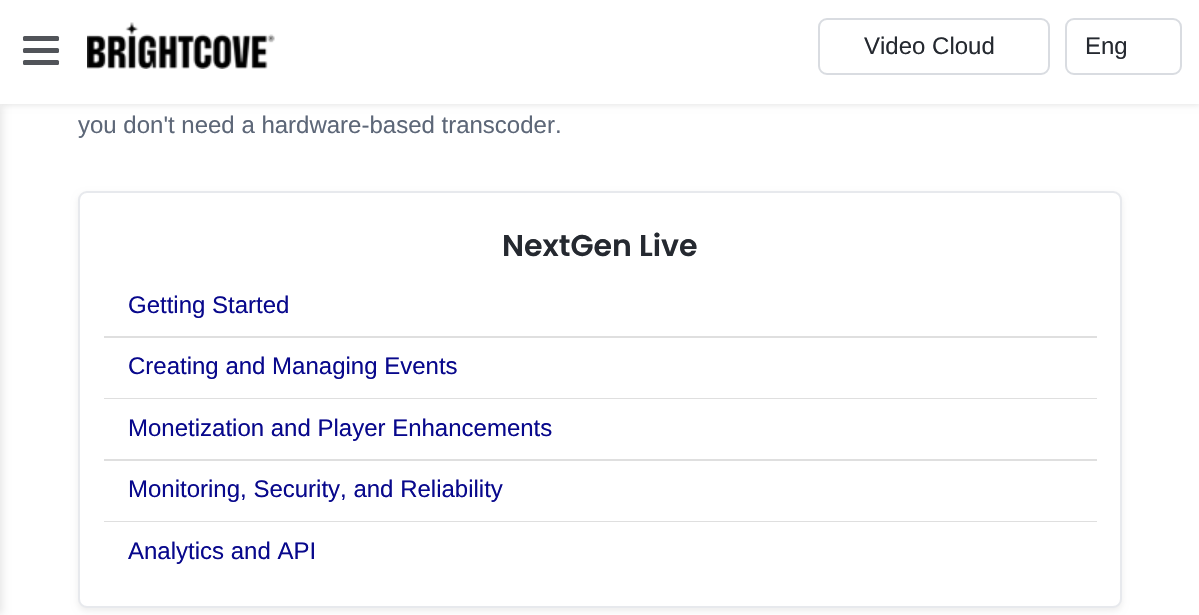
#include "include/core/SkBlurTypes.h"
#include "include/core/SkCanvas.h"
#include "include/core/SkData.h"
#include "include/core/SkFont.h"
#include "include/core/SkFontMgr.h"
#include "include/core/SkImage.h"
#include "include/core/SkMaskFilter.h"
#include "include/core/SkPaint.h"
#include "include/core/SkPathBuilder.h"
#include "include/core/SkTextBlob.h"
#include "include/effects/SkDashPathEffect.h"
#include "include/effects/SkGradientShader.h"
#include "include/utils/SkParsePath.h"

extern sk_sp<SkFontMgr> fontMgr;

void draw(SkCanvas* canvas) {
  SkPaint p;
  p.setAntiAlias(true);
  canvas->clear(SK_ColorWHITE);
  p.setColor(SkColorSetARGB(26, 0, 0, 0));
  p.setMaskFilter(SkMaskFilter::MakeBlur(kNormal_SkBlurStyle, 3));
  canvas->drawRect(SkRect::MakeLTRB(0, 2, 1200, 105), p);
  p.setMaskFilter(nullptr);
  p.setMaskFilter(SkMaskFilter::MakeBlur(kNormal_SkBlurStyle, 4));
  canvas->drawRect(SkRect::MakeLTRB(-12, 104, 2, 615), p);
  p.setMaskFilter(nullptr);
  p.setColor(SK_ColorWHITE);
  canvas->drawRect(SkRect::MakeLTRB(0, 0, 1199, 104), p);
  p.setColor(SkColorSetRGB(81, 84, 89));
  canvas->drawRoundRect(SkRect::MakeLTRB(23, 36, 59, 41), 1.5f, 1.5f, p);
  canvas->drawRoundRect(SkRect::MakeLTRB(23, 48, 59, 53), 1.5f, 1.5f, p);
  canvas->drawRoundRect(SkRect::MakeLTRB(23, 60, 59, 65), 1.5f, 1.5f, p);
  canvas->drawImageRect(SkImages::DeferredFromEncodedData(SkData::MakeFromFileName("images/1.png")), SkRect::MakeLTRB(87, 22, 275, 69), SkSamplingOptions());
  p.setStyle(SkPaint::kStroke_Style);
  p.setStrokeWidth(2);
  p.setColor(SkColorSetRGB(217, 220, 225));
  canvas->drawRoundRect(SkRect::MakeLTRB(819, 19, 1049, 74), 8, 8, p);
  canvas->drawRoundRect(SkRect::MakeLTRB(1066, 19, 1181, 74), 8, 8, p);
  p.setStyle(SkPaint::kFill_Style);
  p.setColor(SkColorSetARGB(18, 0, 0, 0));
  p.setMaskFilter(SkMaskFilter::MakeBlur(kNormal_SkBlurStyle, 3));
  canvas->drawRoundRect(SkRect::MakeLTRB(78, 194, 1122, 611), 9, 9, p);
  p.setMaskFilter(nullptr);
  p.setColor(SK_ColorWHITE);
  canvas->drawRoundRect(SkRect::MakeLTRB(79, 192, 1121, 607), 8, 8, p);
  p.setStyle(SkPaint::kStroke_Style);
  p.setColor(SkColorSetRGB(231, 233, 237));
  canvas->drawRoundRect(SkRect::MakeLTRB(79, 192, 1121, 607), 8, 8, p);
  p.setStyle(SkPaint::kFill_Style);
  p.setColor(SkColorSetRGB(223, 223, 223));
  canvas->drawRect(SkRect::MakeLTRB(104, 336, 1097, 338), p);
  canvas->drawRect(SkRect::MakeLTRB(104, 398, 1097, 399), p);
  canvas->drawRect(SkRect::MakeLTRB(104, 459, 1097, 461), p);
  canvas->drawRect(SkRect::MakeLTRB(104, 521, 1097, 522), p);
  SkFont font1(fontMgr->matchFamilyStyle("Liberation Sans", SkFontStyle::Normal()), 24);
  font1.setSubpixel(true);
  p.setColor(SkColorSetRGB(37, 41, 48));
  canvas->drawString("Video Cloud", 864, 54, font1, p);
  canvas->drawString("Eng", 1085, 54, font1, p);
  p.setColor(SkColorSetRGB(93, 103, 120));
  canvas->drawString("you don't need a hardware-based transcoder.", 78, 133, font1, p);
  SkFont font2(fontMgr->matchFamilyStyle("Poppins", SkFontStyle(600, SkFontStyle::kNormal_Width, SkFontStyle::kUpright_Slant)), 30);
  font2.setSubpixel(true);
  p.setColor(SkColorSetRGB(37, 41, 48));
  canvas->drawString("NextGen Live", 502, 256, font2, p);
  p.setColor(SkColorSetRGB(8, 8, 140));
  canvas->drawString("Getting Started", 128, 313, font1, p);
  canvas->drawString("Creating and Managing Events", 128, 374, font1, p);
  canvas->drawString("Monetization and Player Enhancements", 128, 436, font1, p);
  canvas->drawString("Monitoring, Security, and Reliability", 128, 497, font1, p);
  canvas->drawString("Analytics and API", 128, 559, font1, p);
}
